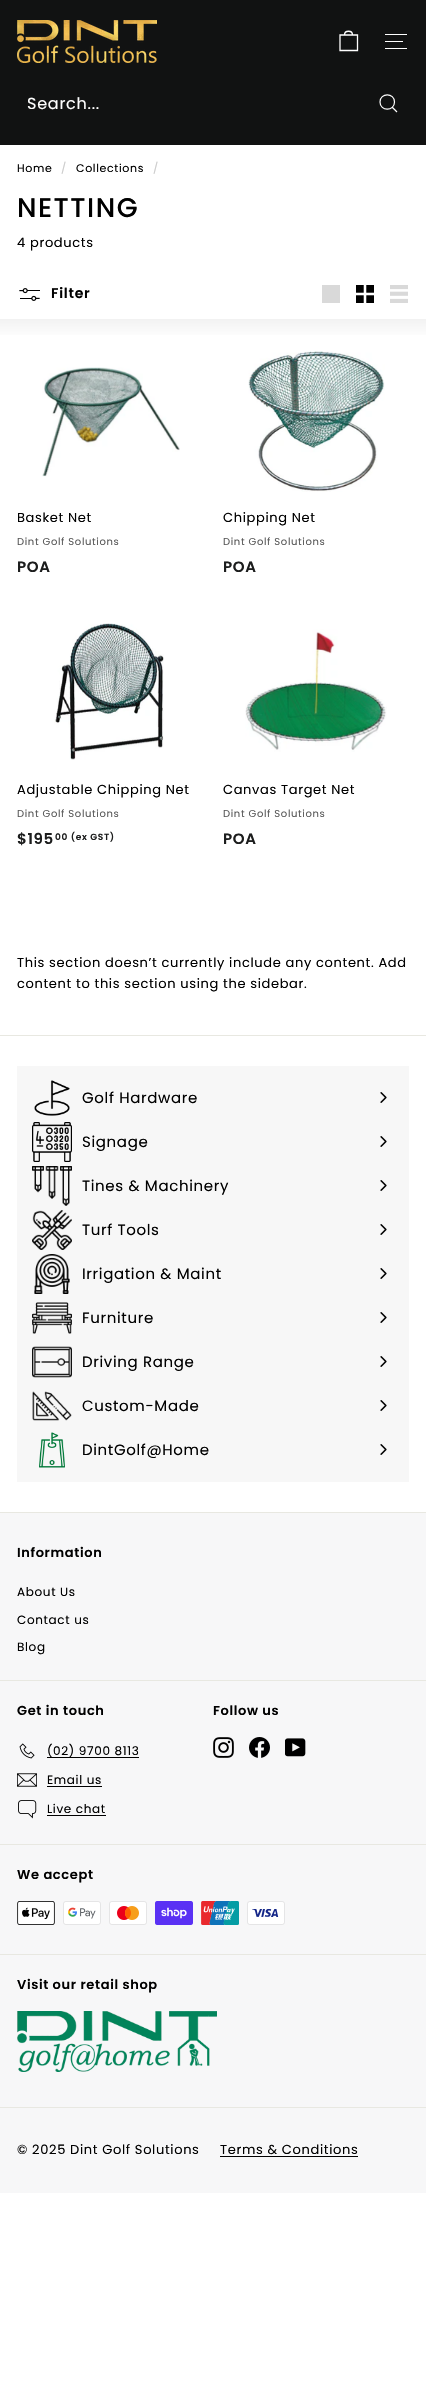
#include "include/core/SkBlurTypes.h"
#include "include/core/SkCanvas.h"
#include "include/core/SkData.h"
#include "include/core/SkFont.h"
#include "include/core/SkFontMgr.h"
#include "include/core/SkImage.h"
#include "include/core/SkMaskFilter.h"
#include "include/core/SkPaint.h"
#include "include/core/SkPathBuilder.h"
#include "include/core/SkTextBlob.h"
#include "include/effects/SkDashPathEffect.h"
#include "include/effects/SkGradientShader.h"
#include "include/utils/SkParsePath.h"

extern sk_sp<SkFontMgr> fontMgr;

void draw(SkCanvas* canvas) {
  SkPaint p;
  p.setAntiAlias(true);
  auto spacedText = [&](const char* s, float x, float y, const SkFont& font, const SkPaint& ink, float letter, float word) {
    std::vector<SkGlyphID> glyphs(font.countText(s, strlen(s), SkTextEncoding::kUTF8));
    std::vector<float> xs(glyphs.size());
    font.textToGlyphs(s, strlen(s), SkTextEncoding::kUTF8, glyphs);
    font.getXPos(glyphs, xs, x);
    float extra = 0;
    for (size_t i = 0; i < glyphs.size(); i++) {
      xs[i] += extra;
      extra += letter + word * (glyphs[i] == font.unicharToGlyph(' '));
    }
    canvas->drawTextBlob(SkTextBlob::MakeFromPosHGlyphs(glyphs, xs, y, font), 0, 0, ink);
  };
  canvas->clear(SK_ColorWHITE);
  p.setColor(SkColorSetRGB(247, 247, 247));
  canvas->drawRect(SkRect::MakeLTRB(17, 1066, 409, 1482), p);
  p.setColor(SkColorSetRGB(17, 18, 18));
  canvas->drawRect(SkRect::MakeLTRB(0, 0, 426, 145), p);
  canvas->drawImageRect(SkImages::DeferredFromEncodedData(SkData::MakeFromFileName("images/1.png")), SkRect::MakeLTRB(17, 20, 157, 63), SkSamplingOptions());
  p.setStyle(SkPaint::kStroke_Style);
  p.setStrokeWidth(1.3f);
  p.setColor(SK_ColorWHITE);
  canvas->drawPath(SkPathBuilder().moveTo(344.5f, 35).cubicTo(344.5f, 30, 352.5f, 30, 352.5f, 35).moveTo(340, 35).lineTo(357.5f, 35).lineTo(357.5f, 50.5f).lineTo(340, 50.5f).close().detach(), p);
  p.setStyle(SkPaint::kFill_Style);
  canvas->drawRect(SkRect::MakeLTRB(385, 34, 407, 35), p);
  canvas->drawRect(SkRect::MakeLTRB(385, 41, 403, 42), p);
  canvas->drawRect(SkRect::MakeLTRB(385, 48, 407, 49), p);
  p.setStyle(SkPaint::kStroke_Style);
  p.setStrokeWidth(1.2f);
  canvas->drawPath(SkPathBuilder().moveTo(394.5f, 102).cubicTo(394.5f, 111.5f, 380, 111.5f, 380, 102).cubicTo(380, 92.5f, 394.5f, 92.5f, 394.5f, 102).close().moveTo(397, 112).lineTo(392.5f, 107.5f).detach(), p);
  canvas->drawImageRect(SkImages::DeferredFromEncodedData(SkData::MakeFromFileName("images/2.png")), SkRect::MakeLTRB(19, 288, 40, 301), SkSamplingOptions());
  p.setStyle(SkPaint::kFill_Style);
  p.setColor(SkColorSetRGB(217, 217, 217));
  canvas->drawRect(SkRect::MakeLTRB(322, 285, 340, 303), p);
  canvas->drawImageRect(SkImages::DeferredFromEncodedData(SkData::MakeFromFileName("images/3.png")), SkRect::MakeLTRB(356, 285, 374, 303), SkSamplingOptions());
  canvas->drawImageRect(SkImages::DeferredFromEncodedData(SkData::MakeFromFileName("images/4.png")), SkRect::MakeLTRB(390, 285, 408, 303), SkSamplingOptions());
  {
    const SkColor colors[] = {SkColorSetRGB(242, 242, 242), SK_ColorWHITE};
    const float stops[] = {0, 1};
    const SkPoint ends[] = {{213, 319}, {213, 339}};
    p.setShader(SkGradientShader::MakeLinear(ends, colors, stops, 2, SkTileMode::kClamp));
    p.setAlpha(255);
  }
  canvas->drawRect(SkRect::MakeLTRB(0, 319, 426, 335), p);
  canvas->drawImageRect(SkImages::DeferredFromEncodedData(SkData::MakeFromFileName("images/5.png")), SkRect::MakeLTRB(42, 367, 180, 477), SkSamplingOptions());
  canvas->drawImageRect(SkImages::DeferredFromEncodedData(SkData::MakeFromFileName("images/6.png")), SkRect::MakeLTRB(248, 351, 385, 492), SkSamplingOptions());
  canvas->drawImageRect(SkImages::DeferredFromEncodedData(SkData::MakeFromFileName("images/7.png")), SkRect::MakeLTRB(54, 623, 164, 760), SkSamplingOptions());
  canvas->drawImageRect(SkImages::DeferredFromEncodedData(SkData::MakeFromFileName("images/8.png")), SkRect::MakeLTRB(245, 629, 387, 752), SkSamplingOptions());
  p.setShader(nullptr);
  p.setColor(SkColorSetRGB(232, 232, 225));
  canvas->drawRect(SkRect::MakeLTRB(0, 1035, 426, 1036), p);
  canvas->drawImageRect(SkImages::DeferredFromEncodedData(SkData::MakeFromFileName("images/9.png")), SkRect::MakeLTRB(34, 1080, 70, 1116), SkSamplingOptions());
  canvas->drawImageRect(SkImages::DeferredFromEncodedData(SkData::MakeFromFileName("images/10.png")), SkRect::MakeLTRB(380, 1092, 387, 1103), SkSamplingOptions());
  canvas->drawImageRect(SkImages::DeferredFromEncodedData(SkData::MakeFromFileName("images/11.png")), SkRect::MakeLTRB(32, 1122, 72, 1162), SkSamplingOptions());
  canvas->drawImageRect(SkImages::DeferredFromEncodedData(SkData::MakeFromFileName("images/10.png")), SkRect::MakeLTRB(380, 1136, 387, 1147), SkSamplingOptions());
  canvas->drawImageRect(SkImages::DeferredFromEncodedData(SkData::MakeFromFileName("images/12.png")), SkRect::MakeLTRB(32, 1166, 72, 1206), SkSamplingOptions());
  canvas->drawImageRect(SkImages::DeferredFromEncodedData(SkData::MakeFromFileName("images/10.png")), SkRect::MakeLTRB(380, 1180, 387, 1191), SkSamplingOptions());
  canvas->drawImageRect(SkImages::DeferredFromEncodedData(SkData::MakeFromFileName("images/13.png")), SkRect::MakeLTRB(32, 1210, 72, 1250), SkSamplingOptions());
  canvas->drawImageRect(SkImages::DeferredFromEncodedData(SkData::MakeFromFileName("images/10.png")), SkRect::MakeLTRB(380, 1224, 387, 1235), SkSamplingOptions());
  canvas->drawImageRect(SkImages::DeferredFromEncodedData(SkData::MakeFromFileName("images/14.png")), SkRect::MakeLTRB(34, 1254, 70, 1294), SkSamplingOptions());
  canvas->drawImageRect(SkImages::DeferredFromEncodedData(SkData::MakeFromFileName("images/10.png")), SkRect::MakeLTRB(380, 1268, 387, 1279), SkSamplingOptions());
  canvas->drawImageRect(SkImages::DeferredFromEncodedData(SkData::MakeFromFileName("images/15.png")), SkRect::MakeLTRB(32, 1302, 72, 1334), SkSamplingOptions());
  canvas->drawImageRect(SkImages::DeferredFromEncodedData(SkData::MakeFromFileName("images/10.png")), SkRect::MakeLTRB(380, 1312, 387, 1323), SkSamplingOptions());
  canvas->drawImageRect(SkImages::DeferredFromEncodedData(SkData::MakeFromFileName("images/16.png")), SkRect::MakeLTRB(32, 1346, 72, 1378), SkSamplingOptions());
  canvas->drawImageRect(SkImages::DeferredFromEncodedData(SkData::MakeFromFileName("images/10.png")), SkRect::MakeLTRB(380, 1356, 387, 1367), SkSamplingOptions());
  canvas->drawImageRect(SkImages::DeferredFromEncodedData(SkData::MakeFromFileName("images/17.png")), SkRect::MakeLTRB(32, 1391, 72, 1421), SkSamplingOptions());
  canvas->drawImageRect(SkImages::DeferredFromEncodedData(SkData::MakeFromFileName("images/10.png")), SkRect::MakeLTRB(380, 1400, 387, 1411), SkSamplingOptions());
  canvas->drawImageRect(SkImages::DeferredFromEncodedData(SkData::MakeFromFileName("images/18.png")), SkRect::MakeLTRB(39, 1432, 65, 1468), SkSamplingOptions());
  canvas->drawImageRect(SkImages::DeferredFromEncodedData(SkData::MakeFromFileName("images/10.png")), SkRect::MakeLTRB(380, 1444, 387, 1455), SkSamplingOptions());
  p.setColor(SkColorSetRGB(247, 247, 248));
  canvas->drawRect(SkRect::MakeLTRB(0, 1513, 426, 2193), p);
  p.setColor(SkColorSetRGB(232, 232, 225));
  canvas->drawRect(SkRect::MakeLTRB(0, 1512, 426, 1513), p);
  canvas->drawRect(SkRect::MakeLTRB(0, 1680, 426, 1681), p);
  canvas->drawImageRect(SkImages::DeferredFromEncodedData(SkData::MakeFromFileName("images/19.png")), SkRect::MakeLTRB(19, 1743, 35, 1759), SkSamplingOptions());
  p.setColor(SK_ColorBLACK);
  canvas->drawRect(SkRect::MakeLTRB(47, 1757, 139, 1758), p);
  canvas->drawImageRect(SkImages::DeferredFromEncodedData(SkData::MakeFromFileName("images/20.png")), SkRect::MakeLTRB(17, 1773, 37, 1787), SkSamplingOptions());
  canvas->drawRect(SkRect::MakeLTRB(47, 1786, 102, 1787), p);
  canvas->drawImageRect(SkImages::DeferredFromEncodedData(SkData::MakeFromFileName("images/21.png")), SkRect::MakeLTRB(18, 1800, 37, 1819), SkSamplingOptions());
  canvas->drawRect(SkRect::MakeLTRB(47, 1815, 106, 1816), p);
  canvas->drawImageRect(SkImages::DeferredFromEncodedData(SkData::MakeFromFileName("images/22.png")), SkRect::MakeLTRB(213, 1737, 234, 1758), SkSamplingOptions());
  canvas->drawImageRect(SkImages::DeferredFromEncodedData(SkData::MakeFromFileName("images/23.png")), SkRect::MakeLTRB(249, 1737, 270, 1758), SkSamplingOptions());
  canvas->drawImageRect(SkImages::DeferredFromEncodedData(SkData::MakeFromFileName("images/24.png")), SkRect::MakeLTRB(285, 1738, 306, 1757), SkSamplingOptions());
  p.setColor(SkColorSetRGB(232, 232, 225));
  canvas->drawRect(SkRect::MakeLTRB(0, 1844, 426, 1845), p);
  canvas->drawImageRect(SkImages::DeferredFromEncodedData(SkData::MakeFromFileName("images/25.png")), SkRect::MakeLTRB(17, 1901, 55, 1925), SkSamplingOptions());
  canvas->drawImageRect(SkImages::DeferredFromEncodedData(SkData::MakeFromFileName("images/26.png")), SkRect::MakeLTRB(63, 1901, 101, 1925), SkSamplingOptions());
  canvas->drawImageRect(SkImages::DeferredFromEncodedData(SkData::MakeFromFileName("images/27.png")), SkRect::MakeLTRB(109, 1901, 147, 1925), SkSamplingOptions());
  canvas->drawImageRect(SkImages::DeferredFromEncodedData(SkData::MakeFromFileName("images/28.png")), SkRect::MakeLTRB(155, 1901, 193, 1925), SkSamplingOptions());
  canvas->drawImageRect(SkImages::DeferredFromEncodedData(SkData::MakeFromFileName("images/29.png")), SkRect::MakeLTRB(201, 1901, 239, 1925), SkSamplingOptions());
  canvas->drawImageRect(SkImages::DeferredFromEncodedData(SkData::MakeFromFileName("images/30.png")), SkRect::MakeLTRB(247, 1901, 285, 1925), SkSamplingOptions());
  canvas->drawRect(SkRect::MakeLTRB(0, 1954, 426, 1955), p);
  canvas->drawImageRect(SkImages::DeferredFromEncodedData(SkData::MakeFromFileName("images/31.png")), SkRect::MakeLTRB(17, 2011, 217, 2072), SkSamplingOptions());
  canvas->drawRect(SkRect::MakeLTRB(0, 2107, 426, 2108), p);
  p.setColor(SK_ColorBLACK);
  canvas->drawRect(SkRect::MakeLTRB(220, 2156, 358, 2157), p);
  SkFont font1(fontMgr->matchFamilyStyle("Poppins", SkFontStyle::Normal()), 16);
  font1.setSubpixel(true);
  p.setColor(SK_ColorWHITE);
  spacedText("Search...", 27, 109, font1, p, 0.75f, 0);
  SkFont font2(fontMgr->matchFamilyStyle("Poppins", SkFontStyle::Normal()), 11);
  font2.setSubpixel(true);
  p.setColor(SK_ColorBLACK);
  spacedText("Home", 17, 172, font2, p, 0.65f, 0);
  p.setColor(SkColorSetRGB(204, 204, 204));
  spacedText("/", 61, 172, font2, p, 0.65f, 0);
  p.setColor(SK_ColorBLACK);
  spacedText("Collections", 76, 172, font2, p, 0.65f, 0);
  p.setColor(SkColorSetRGB(204, 204, 204));
  spacedText("/", 153, 172, font2, p, 0.65f, 0);
  SkFont font3(fontMgr->matchFamilyStyle("Poppins", SkFontStyle(500, SkFontStyle::kNormal_Width, SkFontStyle::kUpright_Slant)), 27);
  font3.setSubpixel(true);
  p.setColor(SK_ColorBLACK);
  spacedText("NETTING", 17, 217, font3, p, 1.5f, 0);
  SkFont font4(fontMgr->matchFamilyStyle("Poppins", SkFontStyle::Normal()), 13);
  font4.setSubpixel(true);
  spacedText("4 products", 17, 247, font4, p, 0.65f, 0);
  SkFont font5(fontMgr->matchFamilyStyle("Poppins", SkFontStyle(600, SkFontStyle::kNormal_Width, SkFontStyle::kUpright_Slant)), 14);
  font5.setSubpixel(true);
  spacedText("Filter", 51, 298, font5, p, 0.75f, 0);
  spacedText("Basket Net", 17, 522, font4, p, 0.65f, 0);
  SkFont font6(fontMgr->matchFamilyStyle("Poppins", SkFontStyle::Normal()), 10);
  font6.setSubpixel(true);
  p.setColor(SkColorSetRGB(89, 89, 89));
  spacedText("Dint Golf Solutions", 17, 545, font6, p, 0.65f, 0);
  SkFont font7(fontMgr->matchFamilyStyle("Poppins", SkFontStyle(600, SkFontStyle::kNormal_Width, SkFontStyle::kUpright_Slant)), 15);
  font7.setSubpixel(true);
  p.setColor(SkColorSetRGB(28, 29, 29));
  spacedText("POA", 17, 572, font7, p, 0.65f, 0);
  p.setColor(SK_ColorBLACK);
  spacedText("Chipping Net", 223, 522, font4, p, 0.65f, 0);
  p.setColor(SkColorSetRGB(89, 89, 89));
  spacedText("Dint Golf Solutions", 223, 545, font6, p, 0.65f, 0);
  p.setColor(SkColorSetRGB(28, 29, 29));
  spacedText("POA", 223, 572, font7, p, 0.65f, 0);
  p.setColor(SK_ColorBLACK);
  spacedText("Adjustable Chipping Net", 17, 794, font4, p, 0.65f, 0);
  p.setColor(SkColorSetRGB(89, 89, 89));
  spacedText("Dint Golf Solutions", 17, 817, font6, p, 0.65f, 0);
  p.setColor(SkColorSetRGB(28, 29, 29));
  spacedText("$195", 17, 844, font7, p, 0.65f, 0);
  SkFont font8(fontMgr->matchFamilyStyle("Poppins", SkFontStyle(600, SkFontStyle::kNormal_Width, SkFontStyle::kUpright_Slant)), 9);
  font8.setSubpixel(true);
  spacedText("00 (ex GST)", 55, 840, font8, p, 0.65f, 0);
  p.setColor(SK_ColorBLACK);
  spacedText("Canvas Target Net", 223, 794, font4, p, 0.65f, 0);
  p.setColor(SkColorSetRGB(89, 89, 89));
  spacedText("Dint Golf Solutions", 223, 817, font6, p, 0.65f, 0);
  p.setColor(SkColorSetRGB(28, 29, 29));
  spacedText("POA", 223, 844, font7, p, 0.65f, 0);
  p.setColor(SK_ColorBLACK);
  spacedText("This section doesn’t currently include any content. Add", 17, 967, font4, p, 0.65f, 0);
  spacedText("content to this section using the sidebar.", 17, 988, font4, p, 0.65f, 0);
  SkFont font9(fontMgr->matchFamilyStyle("Poppins", SkFontStyle::Normal()), 15);
  font9.setSubpixel(true);
  spacedText("Golf Hardware", 82, 1103, font9, p, 0.65f, 0);
  spacedText("Signage", 82, 1147, font9, p, 0.65f, 0);
  spacedText("Tines & Machinery", 82, 1191, font9, p, 0.65f, 0);
  spacedText("Turf Tools", 82, 1235, font9, p, 0.65f, 0);
  spacedText("Irrigation & Maint", 82, 1279, font9, p, 0.65f, 0);
  spacedText("Furniture", 82, 1323, font9, p, 0.65f, 0);
  spacedText("Driving Range", 82, 1367, font9, p, 0.65f, 0);
  spacedText("Custom-Made", 82, 1411, font9, p, 0.65f, 0);
  spacedText("DintGolf@Home", 82, 1455, font9, p, 0.65f, 0);
  SkFont font10(fontMgr->matchFamilyStyle("Poppins", SkFontStyle(600, SkFontStyle::kNormal_Width, SkFontStyle::kUpright_Slant)), 13);
  font10.setSubpixel(true);
  spacedText("Information", 17, 1557, font10, p, 0.65f, 0);
  SkFont font11(fontMgr->matchFamilyStyle("Poppins", SkFontStyle::Normal()), 12);
  font11.setSubpixel(true);
  spacedText("About Us", 17, 1596, font11, p, 0.65f, 0);
  spacedText("Contact us", 17, 1624, font11, p, 0.65f, 0);
  spacedText("Blog", 17, 1651, font11, p, 0.65f, 0);
  spacedText("Get in touch", 17, 1715, font10, p, 0.65f, 0);
  spacedText("(02) 9700 8113", 47, 1755, font11, p, 0.65f, 0);
  spacedText("Email us", 47, 1784, font11, p, 0.65f, 0);
  spacedText("Live chat", 47, 1813, font11, p, 0.65f, 0);
  spacedText("Follow us", 213, 1715, font10, p, 0.65f, 0);
  spacedText("We accept", 17, 1879, font10, p, 0.65f, 0);
  spacedText("Visit our retail shop", 17, 1989, font10, p, 0.65f, 0);
  spacedText("© 2025 Dint Golf Solutions", 17, 2154, font4, p, 0.65f, 0);
  spacedText("Terms & Conditions", 220, 2154, font4, p, 0.65f, 0);
}
